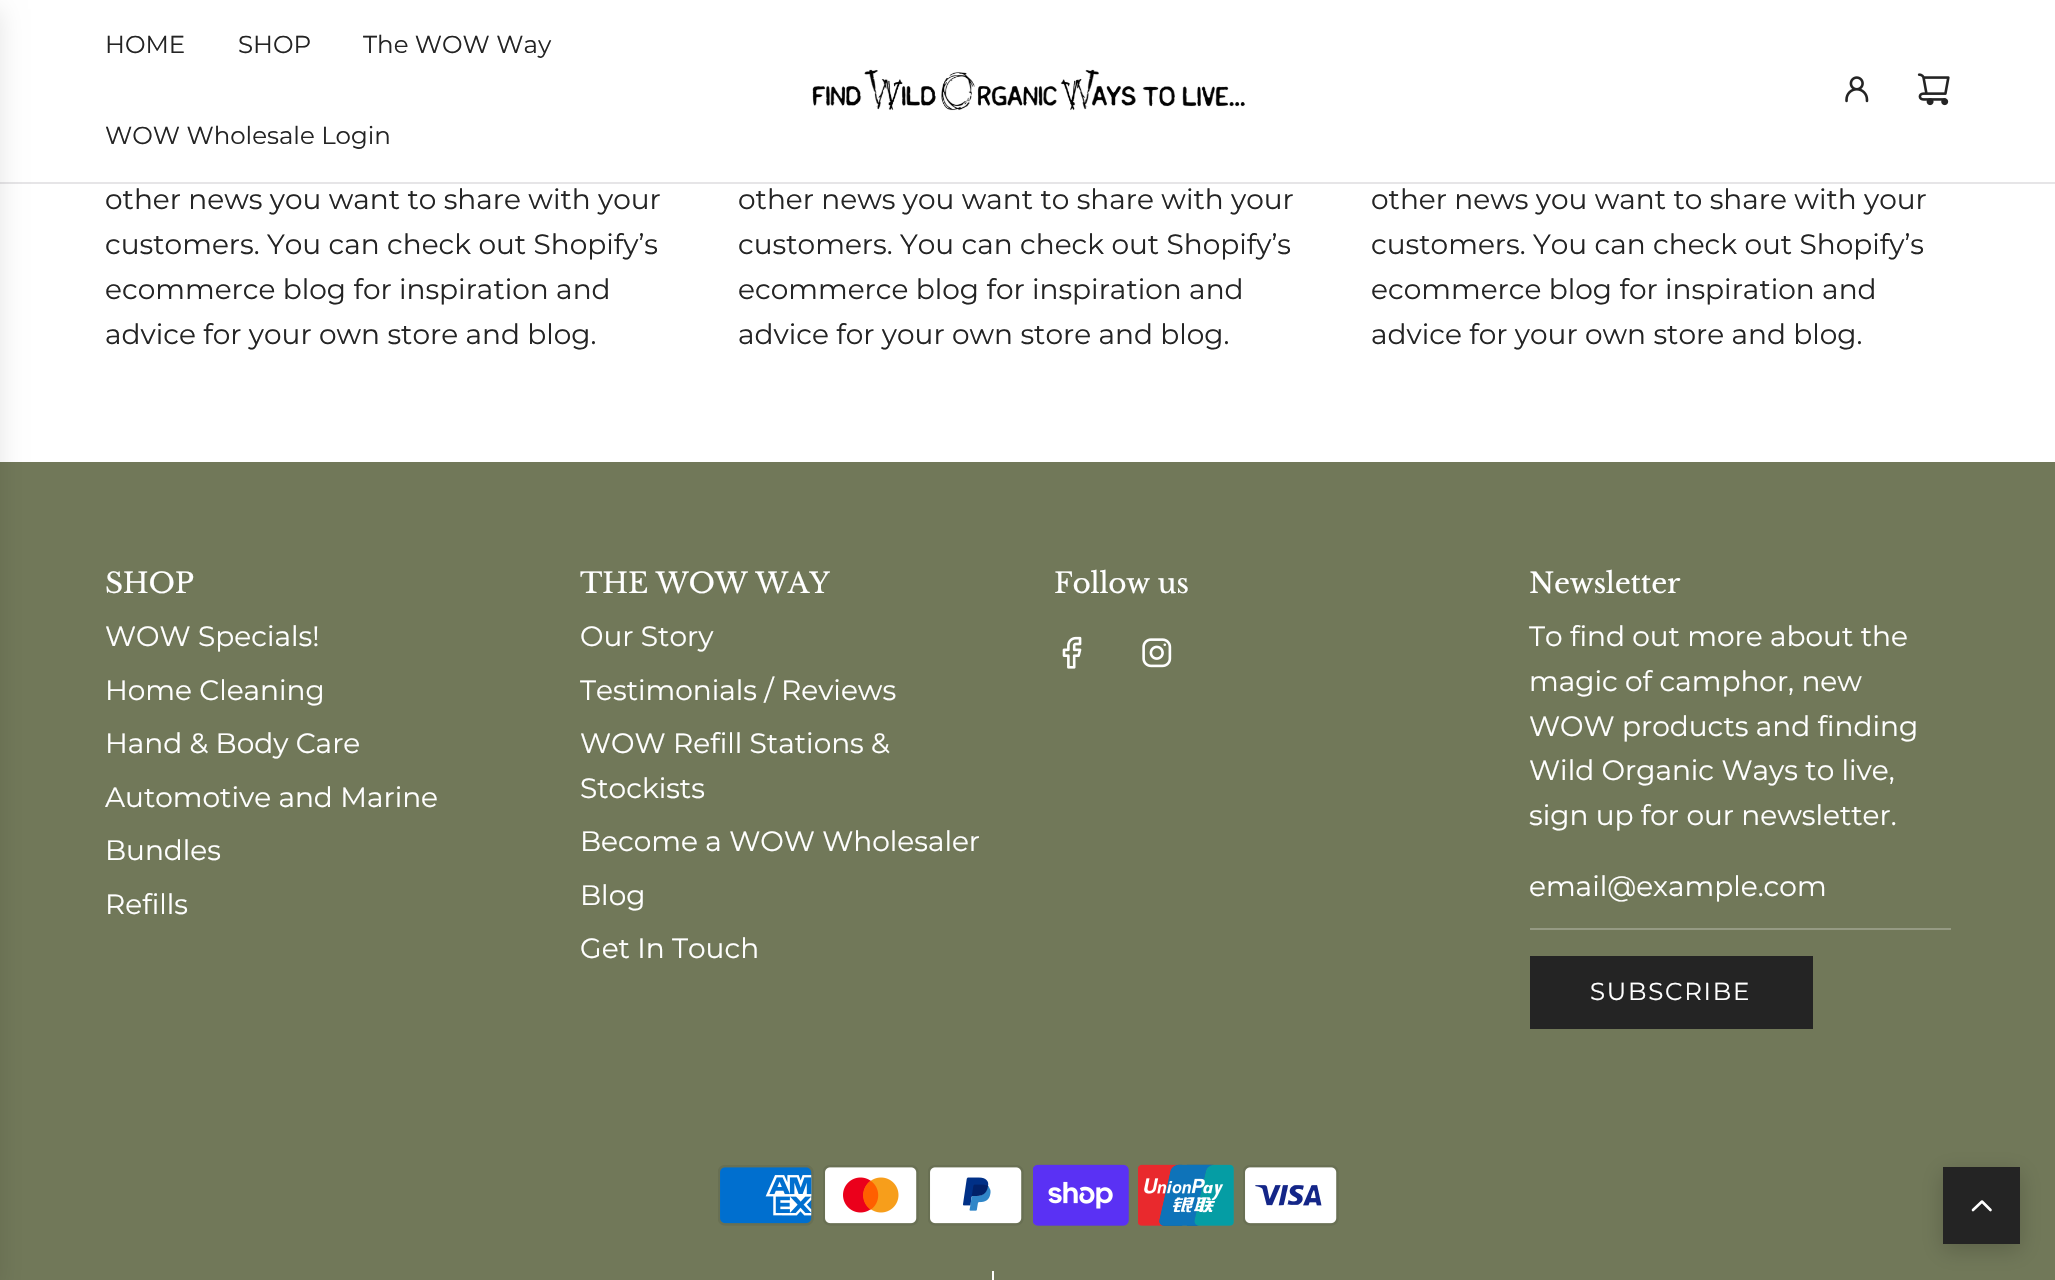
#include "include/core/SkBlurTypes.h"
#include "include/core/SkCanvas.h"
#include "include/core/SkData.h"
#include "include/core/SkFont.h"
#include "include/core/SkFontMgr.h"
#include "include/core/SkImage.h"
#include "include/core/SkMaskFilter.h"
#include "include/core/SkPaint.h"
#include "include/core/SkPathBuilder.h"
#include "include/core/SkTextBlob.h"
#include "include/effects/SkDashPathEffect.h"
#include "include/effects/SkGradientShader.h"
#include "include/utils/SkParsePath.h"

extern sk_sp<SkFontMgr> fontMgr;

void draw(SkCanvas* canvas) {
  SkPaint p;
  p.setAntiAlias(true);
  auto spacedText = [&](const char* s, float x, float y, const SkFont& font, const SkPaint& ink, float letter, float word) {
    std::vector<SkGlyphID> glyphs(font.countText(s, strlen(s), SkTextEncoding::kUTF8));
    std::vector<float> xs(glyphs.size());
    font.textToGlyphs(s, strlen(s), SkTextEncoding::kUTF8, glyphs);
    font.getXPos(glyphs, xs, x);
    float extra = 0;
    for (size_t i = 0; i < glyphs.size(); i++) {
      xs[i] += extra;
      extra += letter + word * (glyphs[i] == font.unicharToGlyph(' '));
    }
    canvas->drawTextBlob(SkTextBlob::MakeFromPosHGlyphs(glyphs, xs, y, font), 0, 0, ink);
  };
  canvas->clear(SK_ColorWHITE);
  p.setColor(SkColorSetRGB(230, 229, 231));
  canvas->drawRect(SkRect::MakeLTRB(0, 182, 2055, 184), p);
  p.setColor(SkColorSetRGB(113, 120, 89));
  canvas->drawRect(SkRect::MakeLTRB(0, 462, 2055, 1280), p);
  p.setColor(SkColorSetARGB(26, 0, 0, 0));
  p.setMaskFilter(SkMaskFilter::MakeBlur(kNormal_SkBlurStyle, 13));
  canvas->drawRect(SkRect::MakeLTRB(-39, 9, 0, 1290), p);
  p.setMaskFilter(nullptr);
  canvas->drawImageRect(SkImages::DeferredFromEncodedData(SkData::MakeFromFileName("images/1.png")), SkRect::MakeLTRB(812, 69, 1245, 111), SkSamplingOptions());
  canvas->drawImageRect(SkImages::DeferredFromEncodedData(SkData::MakeFromFileName("images/2.png")), SkRect::MakeLTRB(1845, 76, 1869, 103), SkSamplingOptions());
  canvas->drawImageRect(SkImages::DeferredFromEncodedData(SkData::MakeFromFileName("images/3.png")), SkRect::MakeLTRB(1917, 73, 1950, 106), SkSamplingOptions());
  canvas->drawImageRect(SkImages::DeferredFromEncodedData(SkData::MakeFromFileName("images/4.png")), SkRect::MakeLTRB(1062, 636, 1082, 669), SkSamplingOptions());
  canvas->drawImageRect(SkImages::DeferredFromEncodedData(SkData::MakeFromFileName("images/5.png")), SkRect::MakeLTRB(1142, 638, 1172, 668), SkSamplingOptions());
  p.setColor(SkColorSetRGB(149, 154, 131));
  canvas->drawRect(SkRect::MakeLTRB(1530, 928, 1951, 930), p);
  p.setColor(SkColorSetRGB(36, 36, 36));
  canvas->drawRect(SkRect::MakeLTRB(1530, 956, 1813, 1029), p);
  canvas->drawImageRect(SkImages::DeferredFromEncodedData(SkData::MakeFromFileName("images/6.png")), SkRect::MakeLTRB(718, 1165, 814, 1226), SkSamplingOptions());
  canvas->drawImageRect(SkImages::DeferredFromEncodedData(SkData::MakeFromFileName("images/7.png")), SkRect::MakeLTRB(823, 1165, 919, 1226), SkSamplingOptions());
  canvas->drawImageRect(SkImages::DeferredFromEncodedData(SkData::MakeFromFileName("images/8.png")), SkRect::MakeLTRB(928, 1165, 1024, 1226), SkSamplingOptions());
  canvas->drawImageRect(SkImages::DeferredFromEncodedData(SkData::MakeFromFileName("images/9.png")), SkRect::MakeLTRB(1033, 1164, 1129, 1226), SkSamplingOptions());
  canvas->drawImageRect(SkImages::DeferredFromEncodedData(SkData::MakeFromFileName("images/10.png")), SkRect::MakeLTRB(1138, 1164, 1234, 1226), SkSamplingOptions());
  canvas->drawImageRect(SkImages::DeferredFromEncodedData(SkData::MakeFromFileName("images/11.png")), SkRect::MakeLTRB(1243, 1165, 1339, 1226), SkSamplingOptions());
  p.setColor(SK_ColorWHITE);
  canvas->drawRect(SkRect::MakeLTRB(992, 1271, 994, 1280), p);
  p.setColor(SkColorSetARGB(46, 0, 0, 0));
  p.setMaskFilter(SkMaskFilter::MakeBlur(kNormal_SkBlurStyle, 10.5f));
  canvas->drawRect(SkRect::MakeLTRB(1943, 1173, 2020, 1250), p);
  p.setMaskFilter(nullptr);
  p.setColor(SkColorSetRGB(36, 36, 36));
  canvas->drawRect(SkRect::MakeLTRB(1943, 1167, 2020, 1244), p);
  p.setStyle(SkPaint::kStroke_Style);
  p.setStrokeWidth(2.6f);
  p.setStrokeCap(SkPaint::kRound_Cap);
  p.setStrokeJoin(SkPaint::kRound_Join);
  p.setColor(SK_ColorWHITE);
  canvas->drawPath(SkPathBuilder().moveTo(1973, 1210).lineTo(1982, 1201.5f).lineTo(1990.5f, 1210).detach(), p);
  SkFont font1(fontMgr->matchFamilyStyle("Montserrat", SkFontStyle::Normal()), 24.5f);
  font1.setSubpixel(true);
  p.setStyle(SkPaint::kFill_Style);
  p.setColor(SkColorSetRGB(36, 36, 36));
  canvas->drawString("HOME", 105, 53, font1, p);
  canvas->drawString("SHOP", 238, 53, font1, p);
  canvas->drawString("The WOW Way", 363, 53, font1, p);
  canvas->drawString("WOW Wholesale Login", 105, 144, font1, p);
  SkFont font2(fontMgr->matchFamilyStyle("Montserrat", SkFontStyle::Normal()), 28);
  font2.setSubpixel(true);
  canvas->drawString("other news you want to share with your", 105, 209, font2, p);
  canvas->drawString("customers. You can check out Shopify’s", 105, 254, font2, p);
  canvas->drawString("ecommerce blog for inspiration and", 105, 299, font2, p);
  canvas->drawString("advice for your own store and blog.", 105, 344, font2, p);
  canvas->drawString("other news you want to share with your", 738, 209, font2, p);
  canvas->drawString("customers. You can check out Shopify’s", 738, 254, font2, p);
  canvas->drawString("ecommerce blog for inspiration and", 738, 299, font2, p);
  canvas->drawString("advice for your own store and blog.", 738, 344, font2, p);
  canvas->drawString("other news you want to share with your", 1371, 209, font2, p);
  canvas->drawString("customers. You can check out Shopify’s", 1371, 254, font2, p);
  canvas->drawString("ecommerce blog for inspiration and", 1371, 299, font2, p);
  canvas->drawString("advice for your own store and blog.", 1371, 344, font2, p);
  SkFont font3(fontMgr->matchFamilyStyle("Libre Baskerville", SkFontStyle::Normal()), 28);
  font3.setSubpixel(true);
  p.setColor(SK_ColorWHITE);
  spacedText("SHOP", 105, 593, font3, p, -0.25f, 0);
  canvas->drawString("WOW Specials!", 105, 646, font2, p);
  canvas->drawString("Home Cleaning", 105, 700, font2, p);
  canvas->drawString("Hand & Body Care", 105, 753, font2, p);
  canvas->drawString("Automotive and Marine", 105, 807, font2, p);
  canvas->drawString("Bundles", 105, 860, font2, p);
  canvas->drawString("Refills", 105, 914, font2, p);
  spacedText("THE WOW WAY", 580, 593, font3, p, -0.25f, 0);
  canvas->drawString("Our Story", 580, 646, font2, p);
  canvas->drawString("Testimonials / Reviews", 580, 700, font2, p);
  canvas->drawString("WOW Refill Stations &", 580, 753, font2, p);
  canvas->drawString("Stockists", 580, 798, font2, p);
  canvas->drawString("Become a WOW Wholesaler", 580, 851, font2, p);
  canvas->drawString("Blog", 580, 905, font2, p);
  canvas->drawString("Get In Touch", 580, 958, font2, p);
  spacedText("Follow us", 1054, 593, font3, p, -0.25f, 0);
  spacedText("Newsletter", 1529, 593, font3, p, -0.25f, 0);
  canvas->drawString("To find out more about the", 1529, 646, font2, p);
  canvas->drawString("magic of camphor, new", 1529, 691, font2, p);
  canvas->drawString("WOW products and finding", 1529, 736, font2, p);
  canvas->drawString("Wild Organic Ways to live,", 1529, 780, font2, p);
  canvas->drawString("sign up for our newsletter.", 1529, 825, font2, p);
  canvas->drawString("email@example.com", 1529, 896, font2, p);
  spacedText("SUBSCRIBE", 1590, 1000, font1, p, 1.75f, 0);
}
